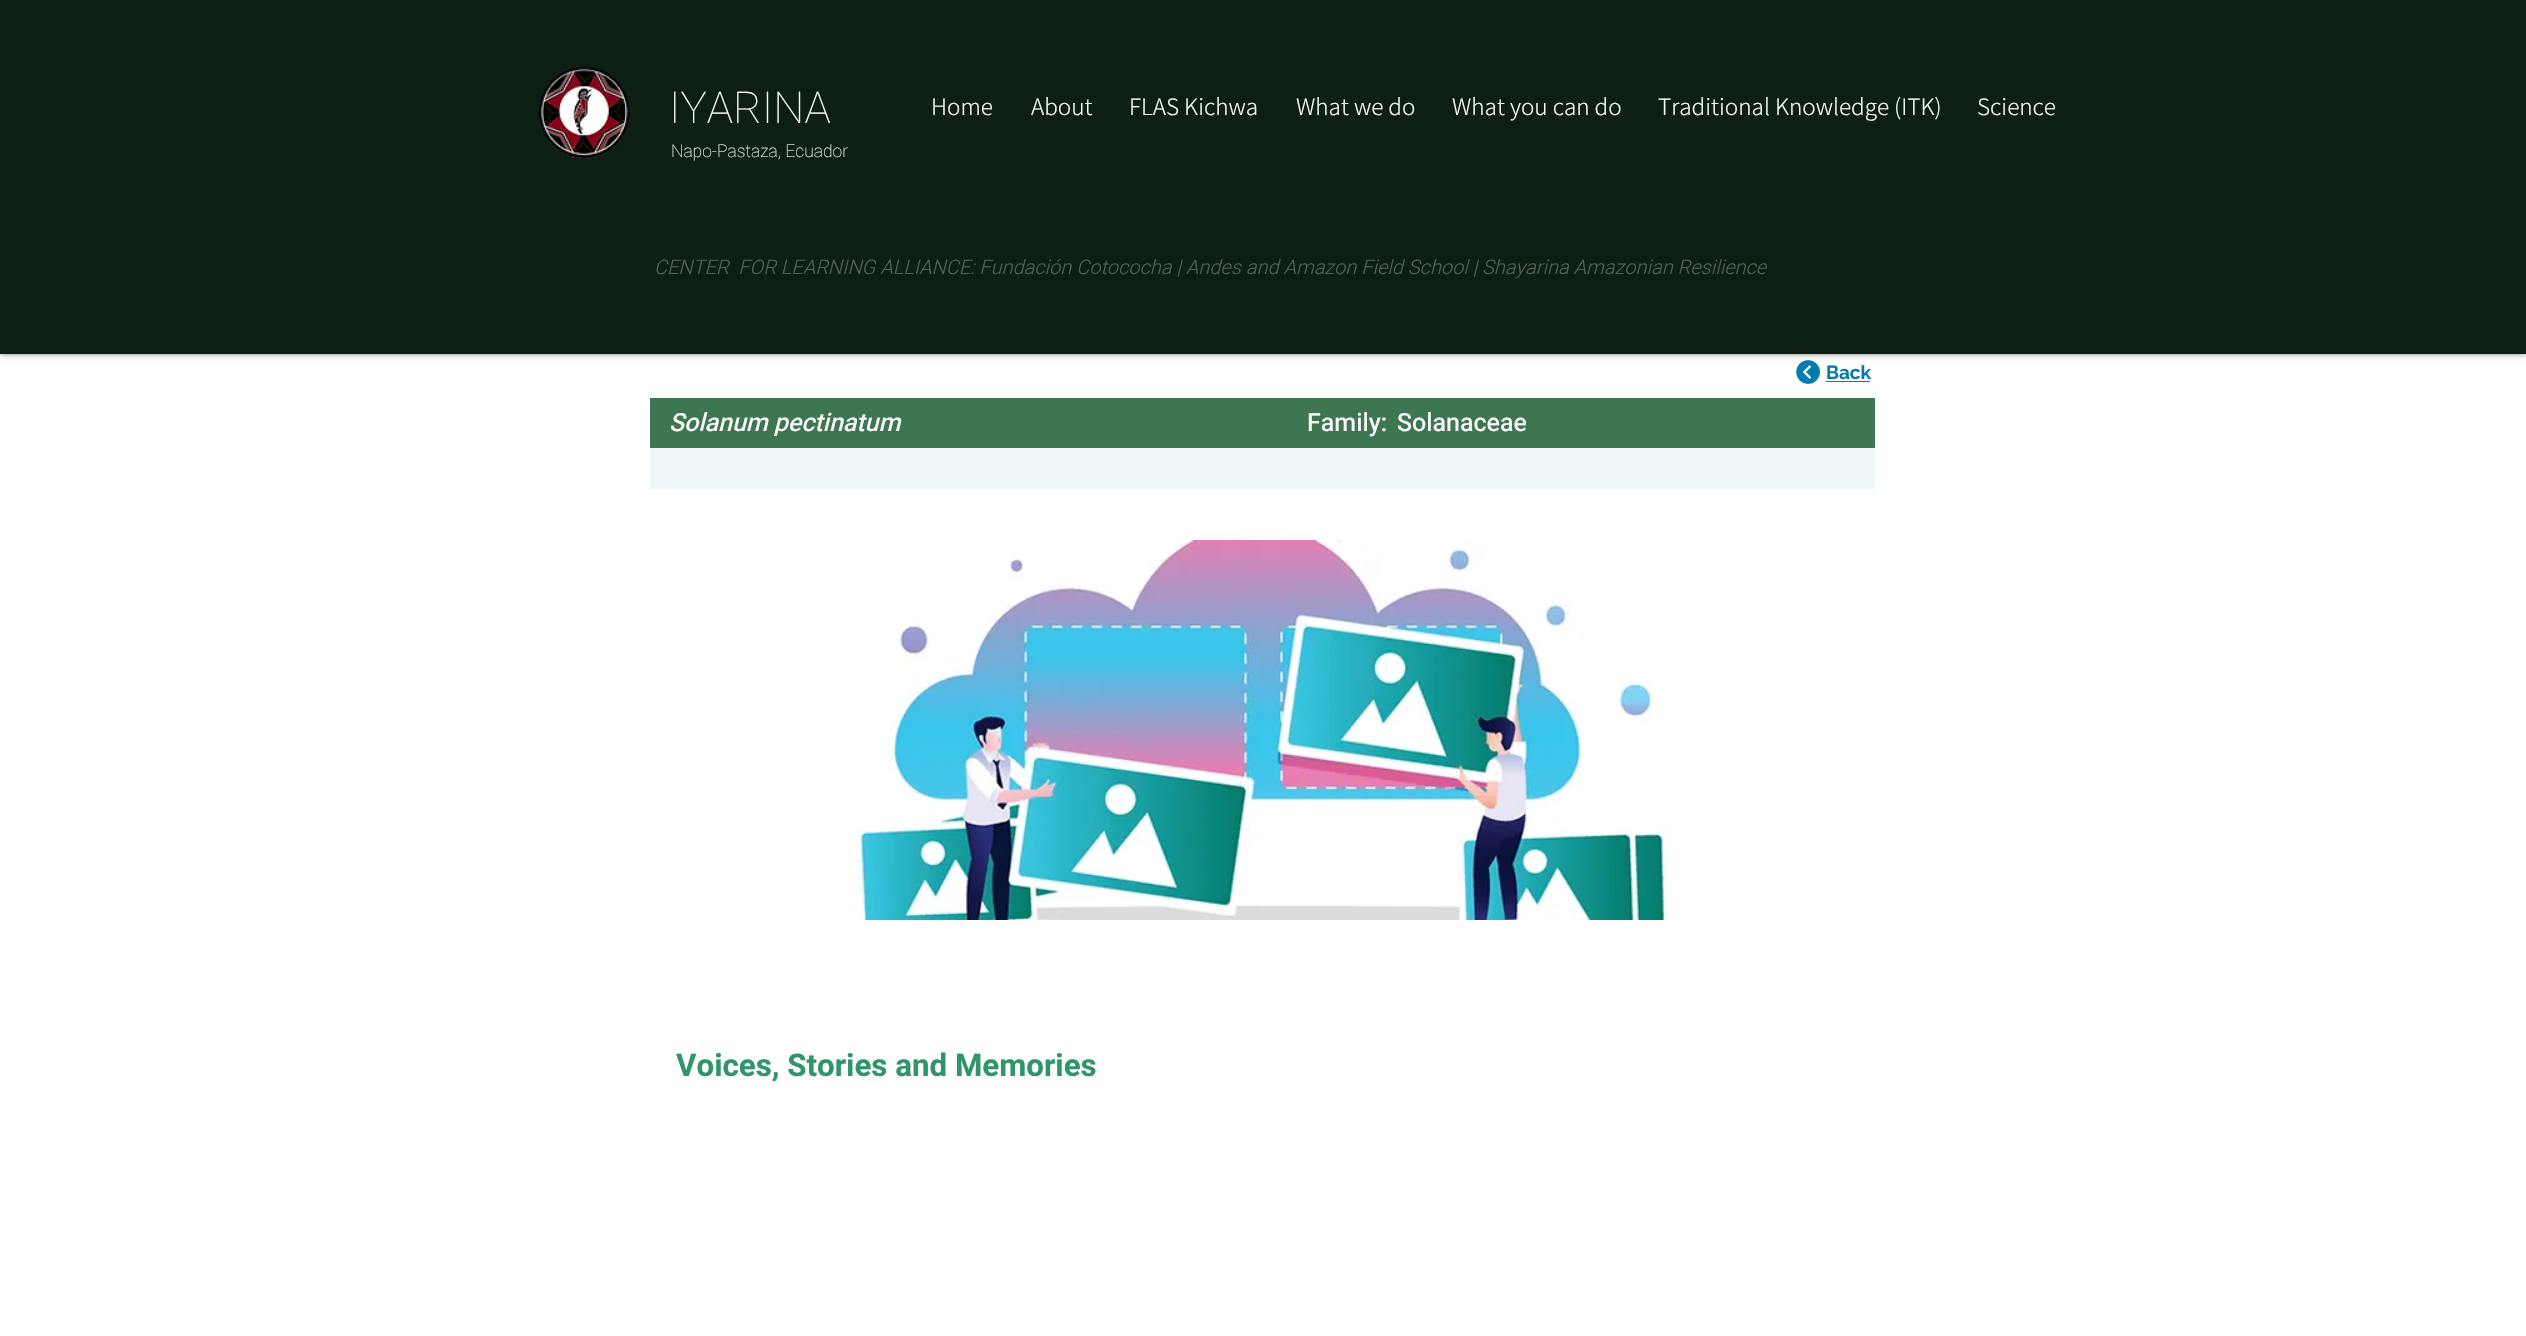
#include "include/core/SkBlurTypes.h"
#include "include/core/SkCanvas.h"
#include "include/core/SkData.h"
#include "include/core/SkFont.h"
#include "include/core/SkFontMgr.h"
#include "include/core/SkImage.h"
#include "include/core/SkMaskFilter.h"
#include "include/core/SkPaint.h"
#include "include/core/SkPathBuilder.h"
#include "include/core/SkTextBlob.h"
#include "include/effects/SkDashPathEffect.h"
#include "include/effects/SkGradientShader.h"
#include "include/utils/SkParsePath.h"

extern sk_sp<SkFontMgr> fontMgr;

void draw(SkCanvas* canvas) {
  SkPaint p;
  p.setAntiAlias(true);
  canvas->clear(SK_ColorWHITE);
  canvas->drawImageRect(SkImages::DeferredFromEncodedData(SkData::MakeFromFileName("images/2.png")), SkRect::MakeLTRB(1796, 360, 1820, 384), SkSamplingOptions());
  p.setColor(SkColorSetARGB(128, 0, 0, 0));
  p.setMaskFilter(SkMaskFilter::MakeBlur(kNormal_SkBlurStyle, 3));
  canvas->drawRect(SkRect::MakeLTRB(0, 0, 2526, 354), p);
  p.setMaskFilter(nullptr);
  p.setColor(SkColorSetRGB(13, 31, 19));
  canvas->drawRect(SkRect::MakeLTRB(0, 0, 2526, 354), p);
  canvas->drawImageRect(SkImages::DeferredFromEncodedData(SkData::MakeFromFileName("images/1.png")), SkRect::MakeLTRB(538, 66, 630, 159), SkSamplingOptions());
  p.setColor(SkColorSetRGB(4, 123, 174));
  canvas->drawRect(SkRect::MakeLTRB(1826, 381, 1870, 382), p);
  p.setColor(SkColorSetRGB(63, 118, 82));
  canvas->drawRect(SkRect::MakeLTRB(650, 398, 1875, 448), p);
  p.setColor(SkColorSetRGB(240, 247, 249));
  canvas->drawRect(SkRect::MakeLTRB(650, 448, 1875, 489), p);
  canvas->drawImageRect(SkImages::DeferredFromEncodedData(SkData::MakeFromFileName("images/3.png")), SkRect::MakeLTRB(859, 540, 1670, 920), SkSamplingOptions());
  SkFont font1(fontMgr->matchFamilyStyle("Roboto", SkFontStyle(100, SkFontStyle::kNormal_Width, SkFontStyle::kUpright_Slant)), 44);
  font1.setSubpixel(true);
  p.setColor(SkColorSetRGB(250, 250, 250));
  canvas->drawString("IYARINA", 669, 123, font1, p);
  SkFont font2(fontMgr->matchFamilyStyle("Roboto", SkFontStyle(100, SkFontStyle::kNormal_Width, SkFontStyle::kUpright_Slant)), 17.5f);
  font2.setSubpixel(true);
  canvas->drawString("Napo-Pastaza, Ecuador", 671, 157, font2, p);
  SkFont font3(fontMgr->matchFamilyStyle("Assistant", SkFontStyle(300, SkFontStyle::kNormal_Width, SkFontStyle::kUpright_Slant)), 25);
  font3.setSubpixel(true);
  canvas->drawString("Home", 931, 115, font3, p);
  canvas->drawString("About", 1031, 115, font3, p);
  canvas->drawString("FLAS Kichwa", 1129, 115, font3, p);
  canvas->drawString("What we do", 1296, 115, font3, p);
  canvas->drawString("What you can do", 1452, 115, font3, p);
  canvas->drawString("Traditional Knowledge (ITK)", 1658, 115, font3, p);
  canvas->drawString("Science", 1977, 115, font3, p);
  SkFont font4(fontMgr->matchFamilyStyle("Heebo", SkFontStyle(300, SkFontStyle::kNormal_Width, SkFontStyle::kItalic_Slant)), 20);
  font4.setSubpixel(true);
  p.setColor(SkColorSetRGB(86, 95, 94));
  canvas->drawString("CENTER  FOR LEARNING ALLIANCE: Fundación Cotococha | Andes and Amazon Field School | Shayarina Amazonian Resilience", 654, 274, font4, p);
  SkFont font5(fontMgr->matchFamilyStyle("Raleway", SkFontStyle::Bold()), 19);
  font5.setSubpixel(true);
  p.setColor(SkColorSetRGB(4, 123, 174));
  canvas->drawString("Back", 1826, 379, font5, p);
  SkFont font6(fontMgr->matchFamilyStyle("Heebo", SkFontStyle(500, SkFontStyle::kNormal_Width, SkFontStyle::kItalic_Slant)), 25);
  font6.setSubpixel(true);
  p.setColor(SkColorSetRGB(250, 250, 250));
  canvas->drawString("Solanum pectinatum", 669, 431, font6, p);
  SkFont font7(fontMgr->matchFamilyStyle("Heebo", SkFontStyle(500, SkFontStyle::kNormal_Width, SkFontStyle::kUpright_Slant)), 25);
  font7.setSubpixel(true);
  canvas->drawString("Family:", 1307, 431, font7, p);
  canvas->drawString("Solanaceae", 1397, 431, font7, p);
  SkFont font8(fontMgr->matchFamilyStyle("Heebo", SkFontStyle::Bold()), 31.25f);
  font8.setSubpixel(true);
  p.setColor(SkColorSetRGB(48, 149, 106));
  canvas->drawString("Voices, Stories and Memories", 676, 1076, font8, p);
}
